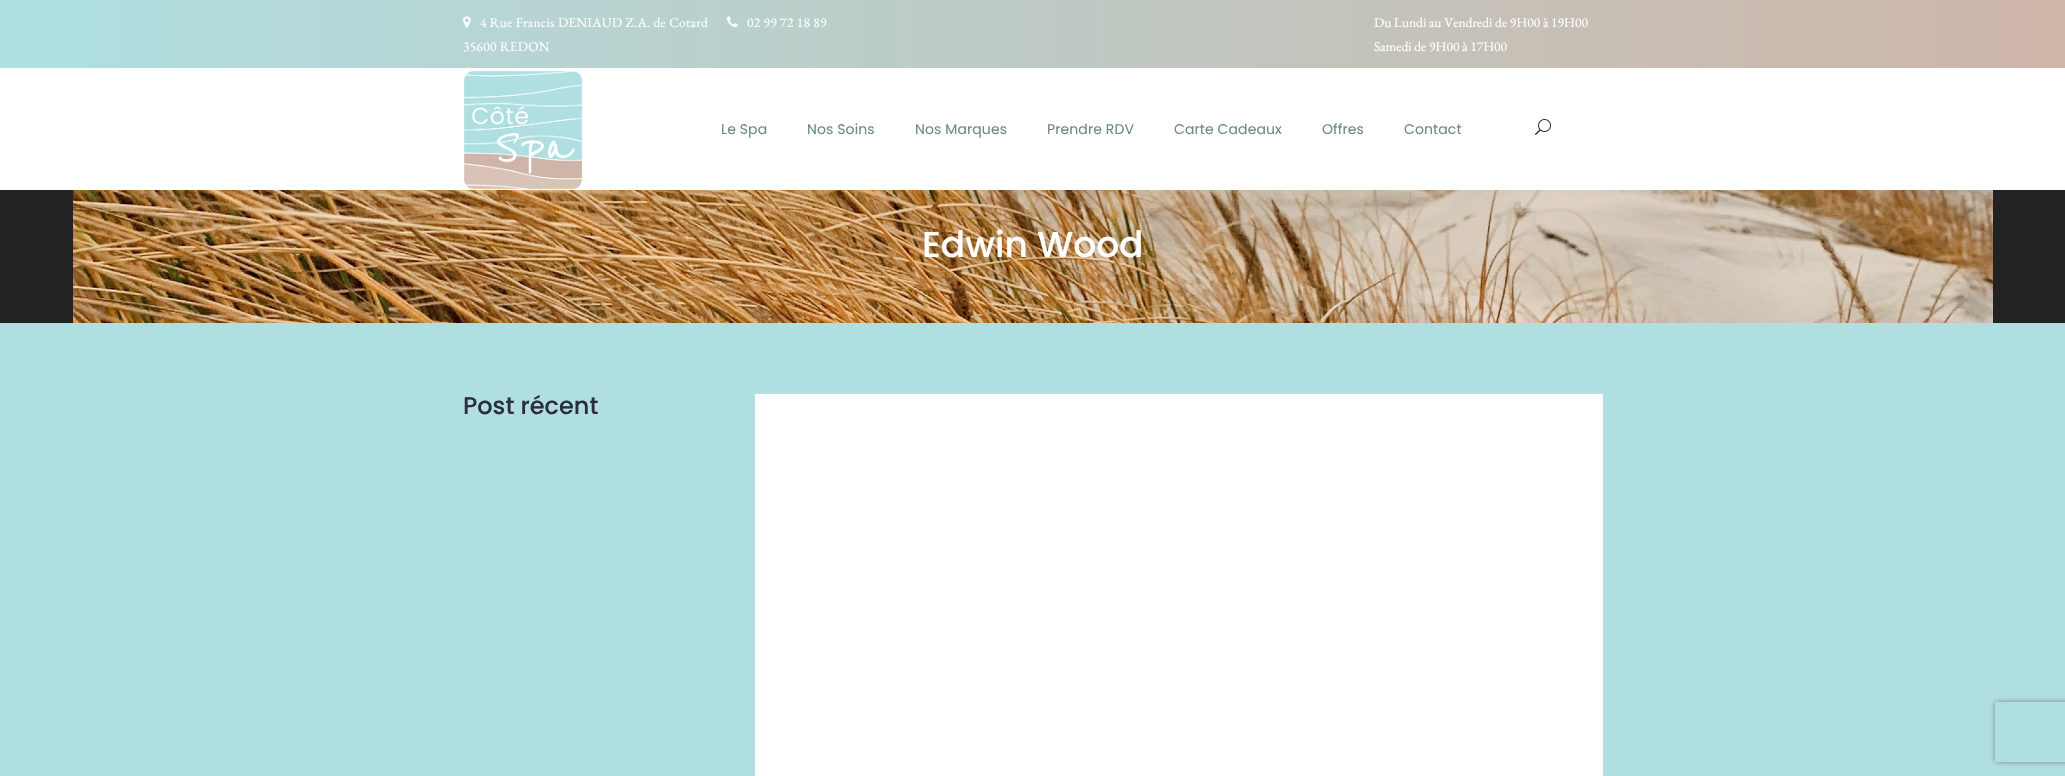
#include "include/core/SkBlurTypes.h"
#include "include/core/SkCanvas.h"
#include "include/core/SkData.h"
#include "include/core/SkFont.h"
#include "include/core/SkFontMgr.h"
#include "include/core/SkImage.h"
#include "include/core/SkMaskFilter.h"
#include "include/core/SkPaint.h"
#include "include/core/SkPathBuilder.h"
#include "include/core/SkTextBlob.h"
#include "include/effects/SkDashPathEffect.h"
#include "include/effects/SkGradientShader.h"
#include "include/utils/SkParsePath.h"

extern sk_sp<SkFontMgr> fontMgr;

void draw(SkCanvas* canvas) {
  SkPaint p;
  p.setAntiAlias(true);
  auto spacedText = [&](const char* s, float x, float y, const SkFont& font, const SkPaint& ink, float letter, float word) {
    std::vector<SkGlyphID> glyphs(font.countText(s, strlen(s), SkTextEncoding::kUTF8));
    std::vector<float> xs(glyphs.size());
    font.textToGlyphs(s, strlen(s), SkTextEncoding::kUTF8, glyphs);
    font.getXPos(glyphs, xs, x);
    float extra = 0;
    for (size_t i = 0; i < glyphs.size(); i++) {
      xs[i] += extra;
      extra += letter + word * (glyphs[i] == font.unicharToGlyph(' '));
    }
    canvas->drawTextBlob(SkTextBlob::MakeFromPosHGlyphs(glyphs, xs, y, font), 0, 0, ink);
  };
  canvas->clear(SkColorSetRGB(175, 223, 225));
  {
    const SkColor colors[] = {SkColorSetRGB(175, 223, 225), SkColorSetRGB(206, 181, 168)};
    const float stops[] = {0, 1};
    const SkPoint ends[] = {{0, 34}, {2065, 34}};
    p.setShader(SkGradientShader::MakeLinear(ends, colors, stops, 2, SkTileMode::kClamp));
    p.setAlpha(255);
  }
  canvas->drawRect(SkRect::MakeLTRB(91, 0, 2065, 68), p);
  canvas->drawImageRect(SkImages::DeferredFromEncodedData(SkData::MakeFromFileName("images/1.png")), SkRect::MakeLTRB(463, 16, 471, 28), SkSamplingOptions());
  canvas->drawImageRect(SkImages::DeferredFromEncodedData(SkData::MakeFromFileName("images/2.png")), SkRect::MakeLTRB(727, 16, 738, 27), SkSamplingOptions());
  p.setShader(nullptr);
  p.setColor(SK_ColorWHITE);
  canvas->drawRect(SkRect::MakeLTRB(0, 68, 2065, 190), p);
  canvas->drawImageRect(SkImages::DeferredFromEncodedData(SkData::MakeFromFileName("images/3.png")), SkRect::MakeLTRB(463, 70, 583, 190), SkSamplingOptions());
  canvas->drawImageRect(SkImages::DeferredFromEncodedData(SkData::MakeFromFileName("images/4.png")), SkRect::MakeLTRB(1535, 119, 1551, 135), SkSamplingOptions());
  p.setColor(SkColorSetRGB(34, 34, 34));
  canvas->drawRect(SkRect::MakeLTRB(0, 190, 2065, 323), p);
  canvas->drawImageRect(SkImages::DeferredFromEncodedData(SkData::MakeFromFileName("images/5.png")), SkRect::MakeLTRB(73, 190, 1993, 323), SkSamplingOptions());
  p.setColor(SK_ColorWHITE);
  canvas->drawRect(SkRect::MakeLTRB(755, 394, 1603, 776), p);
  canvas->save();
  canvas->clipPath(SkPathBuilder(SkPathFillType::kEvenOdd).moveTo(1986, 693).lineTo(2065, 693).lineTo(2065, 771).lineTo(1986, 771).close().moveTo(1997, 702).lineTo(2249, 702).cubicTo(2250, 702, 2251, 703, 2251, 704).lineTo(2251, 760).cubicTo(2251, 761, 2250, 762, 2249, 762).lineTo(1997, 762).cubicTo(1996, 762, 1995, 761, 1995, 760).lineTo(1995, 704).cubicTo(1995, 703, 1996, 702, 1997, 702).close().detach(), true);
  p.setColor(SkColorSetRGB(128, 128, 128));
  p.setMaskFilter(SkMaskFilter::MakeBlur(kNormal_SkBlurStyle, 2.5f));
  canvas->drawRoundRect(SkRect::MakeLTRB(1995, 702, 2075, 762), 2, 2, p);
  p.setMaskFilter(nullptr);
  canvas->restore();
  SkFont font1(fontMgr->matchFamilyStyle("EB Garamond", SkFontStyle::Normal()), 13.5f);
  font1.setSubpixel(true);
  p.setColor(SK_ColorWHITE);
  spacedText("4 Rue Francis DENIAUD Z.A. de Cotard", 480, 27, font1, p, 0.3f, 0);
  spacedText("35600 REDON", 463, 51, font1, p, 0.3f, 0);
  spacedText("02 99 72 18 89", 747, 27, font1, p, 0.3f, 0);
  canvas->drawString("Du Lundi au Vendredi de 9H00 à 19H00", 1374, 27, font1, p);
  canvas->drawString("Samedi de 9H00 à 17H00", 1374, 51, font1, p);
  SkFont font2(fontMgr->matchFamilyStyle("Poppins", SkFontStyle::Normal()), 14);
  font2.setSubpixel(true);
  p.setColor(SkColorSetRGB(108, 136, 139));
  spacedText("Le Spa", 721, 134, font2, p, 0.1f, 0);
  spacedText("Nos Soins", 807, 134, font2, p, 0.1f, 0);
  spacedText("Nos Marques", 915, 134, font2, p, 0.1f, 0);
  spacedText("Prendre RDV", 1047, 134, font2, p, 0.1f, 0);
  spacedText("Carte Cadeaux", 1174, 134, font2, p, 0.1f, 0);
  spacedText("Offres", 1322, 134, font2, p, 0.1f, 0);
  spacedText("Contact", 1404, 134, font2, p, 0.1f, 0);
  SkFont font3(fontMgr->matchFamilyStyle("Poppins", SkFontStyle(500, SkFontStyle::kNormal_Width, SkFontStyle::kUpright_Slant)), 36);
  font3.setSubpixel(true);
  p.setColor(SK_ColorWHITE);
  canvas->drawString("Edwin Wood", 922, 257, font3, p);
  SkFont font4(fontMgr->matchFamilyStyle("Poppins", SkFontStyle(500, SkFontStyle::kNormal_Width, SkFontStyle::kUpright_Slant)), 24);
  font4.setSubpixel(true);
  p.setColor(SkColorSetRGB(45, 44, 64));
  canvas->drawString("Post récent", 463, 414, font4, p);
}
